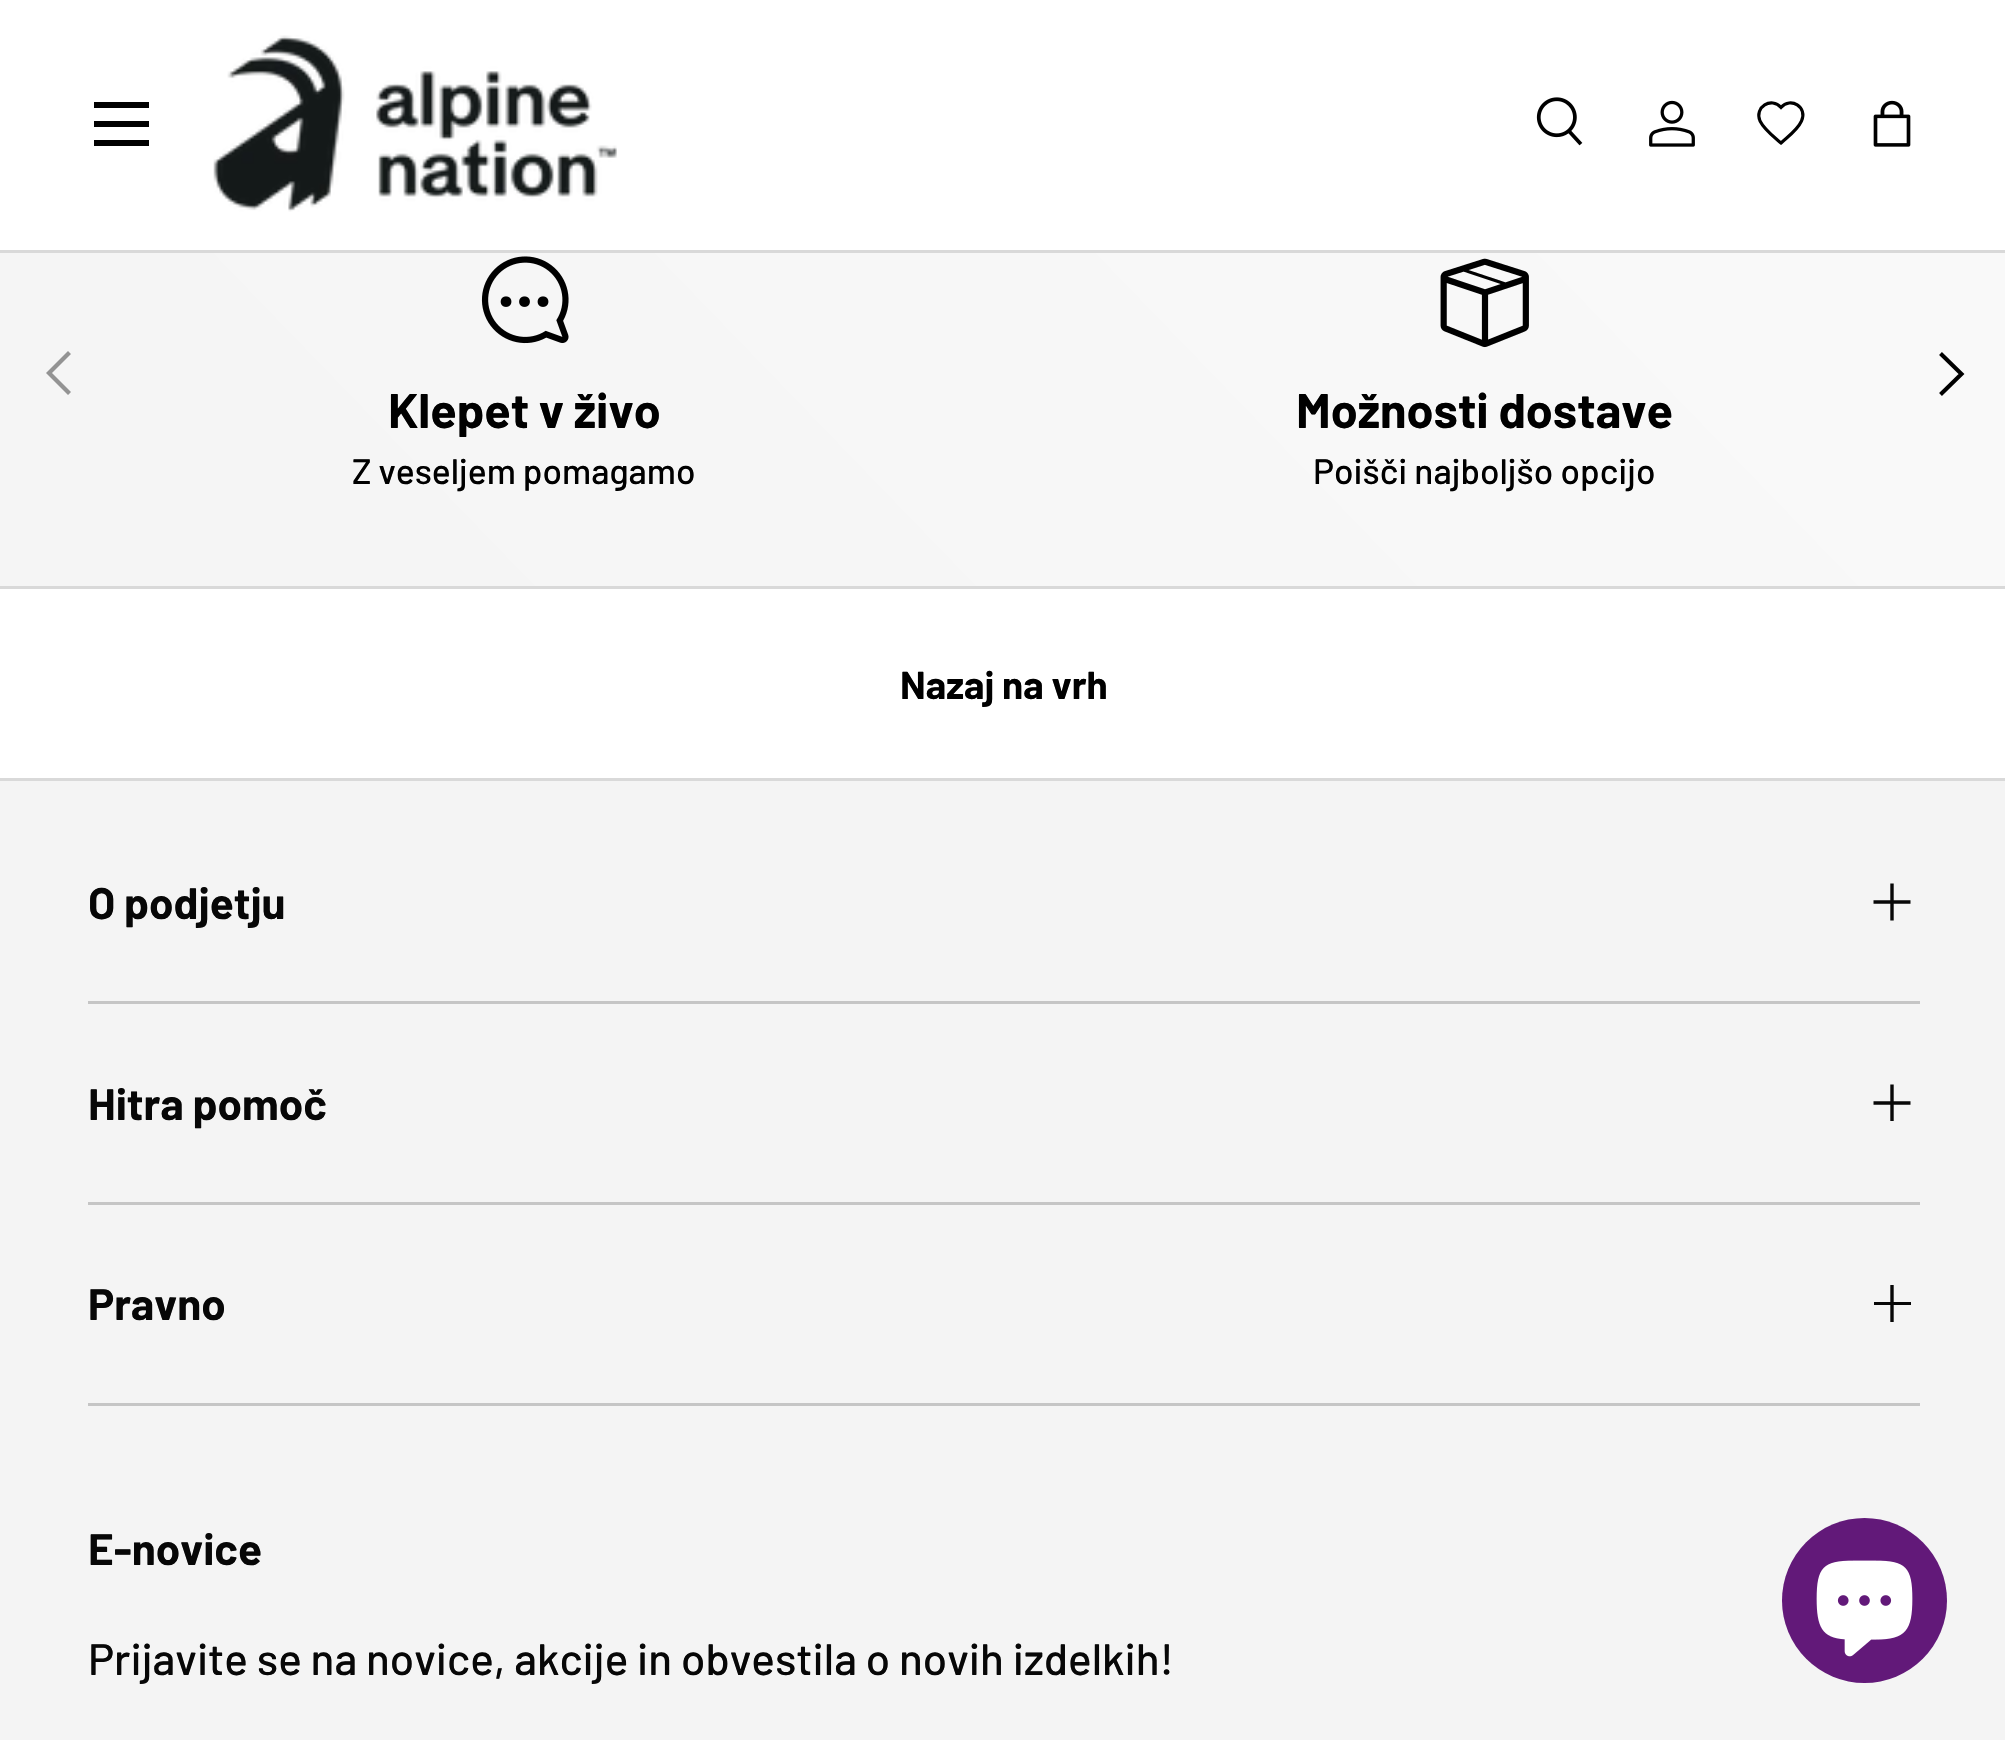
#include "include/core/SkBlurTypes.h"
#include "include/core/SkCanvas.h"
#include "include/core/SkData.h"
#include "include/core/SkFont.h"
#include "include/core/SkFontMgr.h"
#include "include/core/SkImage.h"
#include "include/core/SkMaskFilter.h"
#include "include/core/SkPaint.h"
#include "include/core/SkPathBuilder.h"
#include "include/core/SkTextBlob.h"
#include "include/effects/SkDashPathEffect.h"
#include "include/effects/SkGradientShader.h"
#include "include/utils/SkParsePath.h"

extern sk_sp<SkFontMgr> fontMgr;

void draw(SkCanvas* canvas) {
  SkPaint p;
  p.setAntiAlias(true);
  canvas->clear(SK_ColorWHITE);
  p.setColor(SkColorSetRGB(217, 217, 217));
  canvas->drawRect(SkRect::MakeLTRB(0, 250, 2005, 253), p);
  p.setColor(SK_ColorBLACK);
  canvas->drawRect(SkRect::MakeLTRB(94, 102, 149, 108), p);
  canvas->drawRect(SkRect::MakeLTRB(94, 140, 149, 146), p);
  canvas->drawRect(SkRect::MakeLTRB(94, 121, 149, 127), p);
  canvas->drawImageRect(SkImages::DeferredFromEncodedData(SkData::MakeFromFileName("images/1.png")), SkRect::MakeLTRB(213, 35, 617, 212), SkSamplingOptions());
  canvas->drawImageRect(SkImages::DeferredFromEncodedData(SkData::MakeFromFileName("images/2.png")), SkRect::MakeLTRB(1536, 97, 1583, 146), SkSamplingOptions());
  canvas->drawImageRect(SkImages::DeferredFromEncodedData(SkData::MakeFromFileName("images/3.png")), SkRect::MakeLTRB(1649, 100, 1695, 147), SkSamplingOptions());
  p.setStyle(SkPaint::kStroke_Style);
  p.setStrokeWidth(3.1f);
  canvas->drawPath(SkPathBuilder().moveTo(1781, 143).cubicTo(1773.5f, 136.5f, 1764.5f, 130, 1760, 121).cubicTo(1754, 107, 1771.5f, 96.5f, 1781, 107.5f).cubicTo(1790.5f, 96.5f, 1808, 107, 1801.5f, 121).cubicTo(1797.5f, 130, 1788, 136.5f, 1781, 143).close().detach(), p);
  canvas->drawImageRect(SkImages::DeferredFromEncodedData(SkData::MakeFromFileName("images/4.png")), SkRect::MakeLTRB(1873, 100, 1911, 147), SkSamplingOptions());
  p.setStyle(SkPaint::kFill_Style);
  {
    const SkColor colors[] = {SkColorSetRGB(245, 245, 245), SkColorSetRGB(249, 249, 249)};
    const float stops[] = {0.13f, 0.86f};
    const SkPoint ends[] = {{379, 978}, {1629, -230}};
    p.setShader(SkGradientShader::MakeLinear(ends, colors, stops, 2, SkTileMode::kClamp));
    p.setAlpha(255);
  }
  canvas->drawRect(SkRect::MakeLTRB(0, 253, 2005, 586), p);
  p.setShader(nullptr);
  p.setColor(SkColorSetRGB(147, 147, 147));
  canvas->drawPath(SkPathBuilder().moveTo(46, 373).lineTo(68, 351).lineTo(71, 354).lineTo(52, 373).lineTo(71, 392).lineTo(68, 395).close().detach(), p);
  p.setStyle(SkPaint::kStroke_Style);
  p.setStrokeWidth(4.1f);
  p.setColor(SK_ColorBLACK);
  canvas->drawPath(SkPathBuilder().moveTo(1940.5f, 353.5f).lineTo(1961.5f, 374).lineTo(1940.5f, 394.5f).detach(), p);
  canvas->drawImageRect(SkImages::DeferredFromEncodedData(SkData::MakeFromFileName("images/5.png")), SkRect::MakeLTRB(481, 256, 569, 344), SkSamplingOptions());
  canvas->drawImageRect(SkImages::DeferredFromEncodedData(SkData::MakeFromFileName("images/6.png")), SkRect::MakeLTRB(1440, 258, 1529, 348), SkSamplingOptions());
  p.setStyle(SkPaint::kFill_Style);
  p.setColor(SkColorSetRGB(217, 217, 217));
  canvas->drawRect(SkRect::MakeLTRB(0, 586, 2005, 589), p);
  canvas->drawRect(SkRect::MakeLTRB(0, 778, 2005, 781), p);
  p.setColor(SkColorSetRGB(244, 244, 244));
  canvas->drawRect(SkRect::MakeLTRB(0, 781, 2005, 1740), p);
  p.setColor(SkColorSetRGB(197, 197, 197));
  canvas->drawRect(SkRect::MakeLTRB(88, 1001, 1920, 1004), p);
  p.setStyle(SkPaint::kStroke_Style);
  p.setStrokeWidth(3.4f);
  p.setColor(SkColorSetRGB(7, 7, 7));
  canvas->drawPath(SkPathBuilder().moveTo(1873.5f, 902).lineTo(1910.5f, 902).moveTo(1892, 883.5f).lineTo(1892, 920.5f).detach(), p);
  p.setStyle(SkPaint::kFill_Style);
  p.setColor(SkColorSetRGB(197, 197, 197));
  canvas->drawRect(SkRect::MakeLTRB(88, 1202, 1920, 1205), p);
  p.setStyle(SkPaint::kStroke_Style);
  p.setColor(SkColorSetRGB(7, 7, 7));
  canvas->drawPath(SkPathBuilder().moveTo(1873.5f, 1103).lineTo(1910.5f, 1103).moveTo(1892, 1084.5f).lineTo(1892, 1121).detach(), p);
  p.setStyle(SkPaint::kFill_Style);
  p.setColor(SkColorSetRGB(197, 197, 197));
  canvas->drawRect(SkRect::MakeLTRB(88, 1403, 1920, 1406), p);
  p.setColor(SkColorSetRGB(7, 7, 7));
  canvas->drawRect(SkRect::MakeLTRB(1874, 1302, 1911, 1305), p);
  p.setStyle(SkPaint::kStroke_Style);
  canvas->drawPath(SkPathBuilder().moveTo(1892, 1285).lineTo(1892, 1322).detach(), p);
  p.setStyle(SkPaint::kFill_Style);
  p.setColor(SkColorSetRGB(98, 25, 121));
  canvas->drawCircle(1864.5f, 1600.5f, 82.5f, p);
  canvas->drawImageRect(SkImages::DeferredFromEncodedData(SkData::MakeFromFileName("images/7.png")), SkRect::MakeLTRB(1816, 1560, 1913, 1657), SkSamplingOptions());
  SkFont font1(fontMgr->matchFamilyStyle("Barlow", SkFontStyle::Bold()), 48.5f);
  font1.setSubpixel(true);
  p.setColor(SK_ColorBLACK);
  canvas->drawString("Klepet v živo", 388, 428, font1, p);
  SkFont font2(fontMgr->matchFamilyStyle("Barlow", SkFontStyle(500, SkFontStyle::kNormal_Width, SkFontStyle::kUpright_Slant)), 35.25f);
  font2.setSubpixel(true);
  canvas->drawString("Z veseljem pomagamo", 352, 484, font2, p);
  canvas->drawString("Možnosti dostave", 1296, 428, font1, p);
  canvas->drawString("Poišči najboljšo opcijo", 1313, 484, font2, p);
  SkFont font3(fontMgr->matchFamilyStyle("Barlow", SkFontStyle::Bold()), 38.75f);
  font3.setSubpixel(true);
  canvas->drawString("Nazaj na vrh", 900, 699, font3, p);
  SkFont font4(fontMgr->matchFamilyStyle("Barlow", SkFontStyle::Bold()), 44);
  font4.setSubpixel(true);
  p.setColor(SkColorSetRGB(7, 7, 7));
  canvas->drawString("O podjetju", 88, 919, font4, p);
  canvas->drawString("Hitra pomoč", 88, 1120, font4, p);
  canvas->drawString("Pravno", 88, 1320, font4, p);
  canvas->drawString("E-novice", 88, 1565, font4, p);
  SkFont font5(fontMgr->matchFamilyStyle("Barlow", SkFontStyle(500, SkFontStyle::kNormal_Width, SkFontStyle::kUpright_Slant)), 44);
  font5.setSubpixel(true);
  canvas->drawString("Prijavite se na novice, akcije in obvestila o novih izdelkih!", 88, 1675, font5, p);
}
